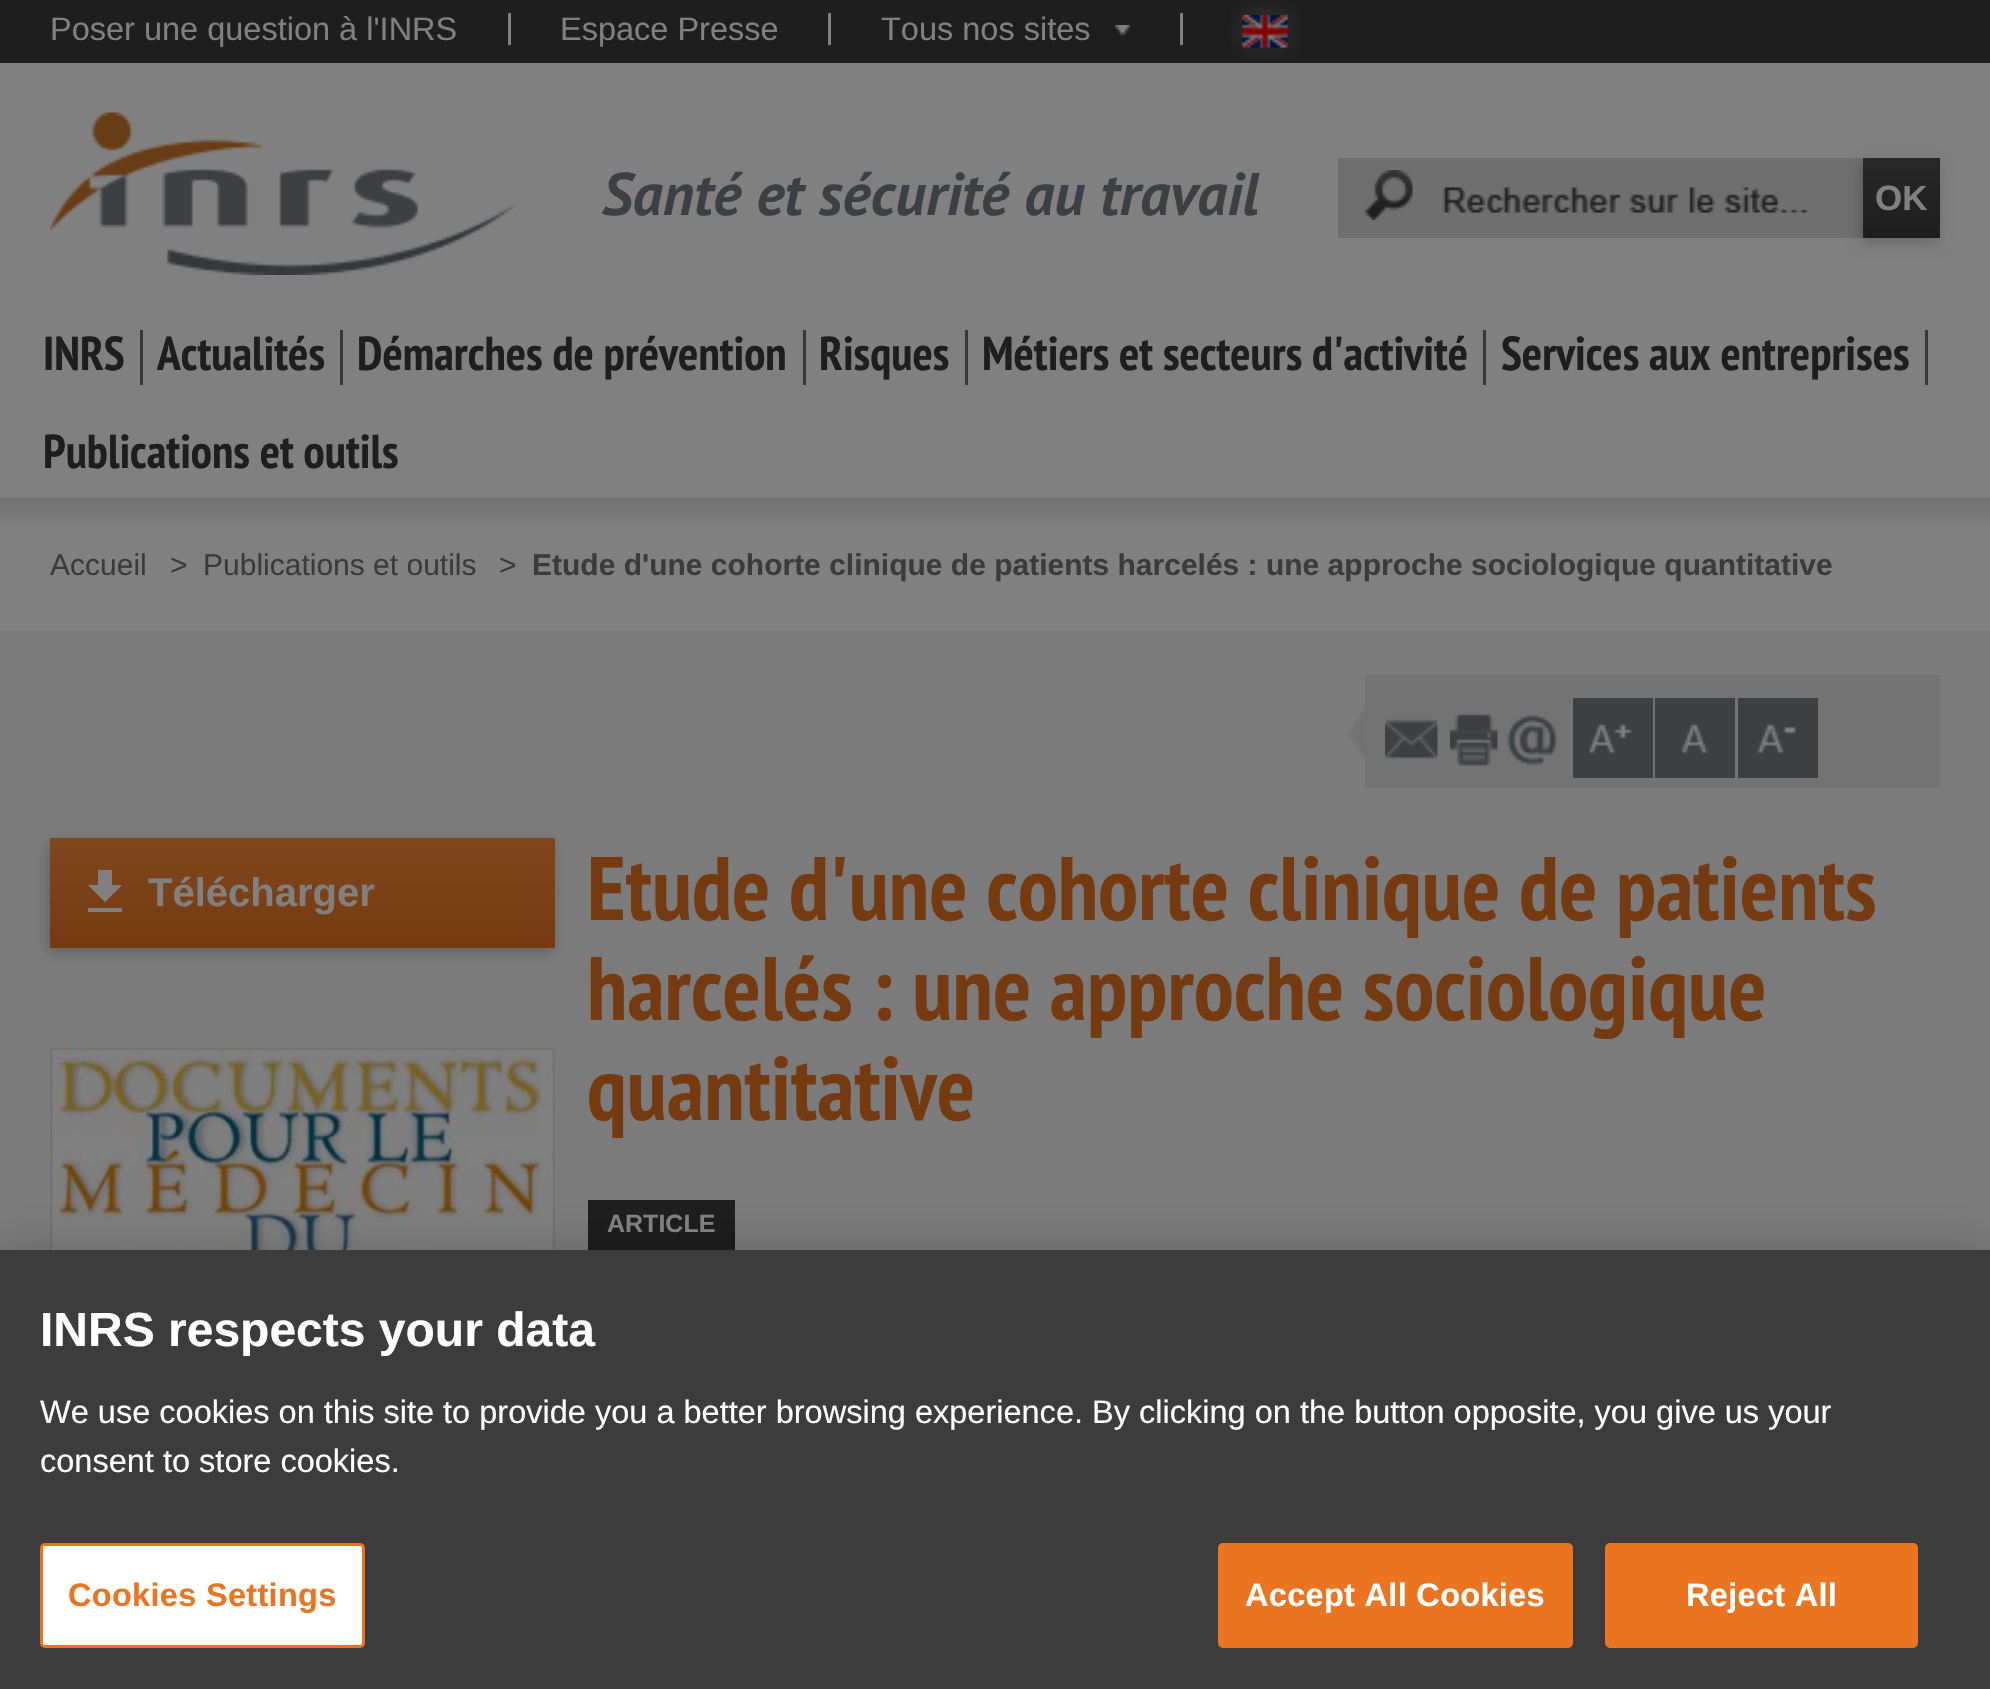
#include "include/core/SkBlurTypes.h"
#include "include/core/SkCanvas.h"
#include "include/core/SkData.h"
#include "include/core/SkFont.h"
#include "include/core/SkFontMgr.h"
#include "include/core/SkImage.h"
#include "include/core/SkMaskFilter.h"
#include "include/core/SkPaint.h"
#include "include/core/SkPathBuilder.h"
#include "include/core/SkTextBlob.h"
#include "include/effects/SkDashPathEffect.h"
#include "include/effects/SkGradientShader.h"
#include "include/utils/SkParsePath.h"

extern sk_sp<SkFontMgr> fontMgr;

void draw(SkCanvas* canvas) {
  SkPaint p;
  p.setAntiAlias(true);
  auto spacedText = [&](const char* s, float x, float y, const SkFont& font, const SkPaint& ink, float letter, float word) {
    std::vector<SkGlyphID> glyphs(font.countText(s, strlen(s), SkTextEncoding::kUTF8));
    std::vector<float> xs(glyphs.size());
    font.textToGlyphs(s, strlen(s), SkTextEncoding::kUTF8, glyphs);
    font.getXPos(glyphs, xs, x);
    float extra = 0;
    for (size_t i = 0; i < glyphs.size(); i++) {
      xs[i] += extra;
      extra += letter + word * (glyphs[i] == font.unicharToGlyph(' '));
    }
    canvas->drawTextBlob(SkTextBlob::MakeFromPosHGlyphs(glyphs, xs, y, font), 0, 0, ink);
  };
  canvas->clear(SkColorSetRGB(128, 128, 128));
  p.setColor(SkColorSetRGB(30, 30, 30));
  canvas->drawRect(SkRect::MakeLTRB(0, 0, 1990, 63), p);
  p.setColor(SkColorSetRGB(128, 128, 128));
  canvas->drawRect(SkRect::MakeLTRB(508, 13, 511, 45), p);
  canvas->drawRect(SkRect::MakeLTRB(828, 13, 831, 45), p);
  canvas->drawRect(SkRect::MakeLTRB(1180, 13, 1183, 45), p);
  canvas->drawImageRect(SkImages::DeferredFromEncodedData(SkData::MakeFromFileName("images/1.png")), SkRect::MakeLTRB(1115, 25, 1130, 35), SkSamplingOptions());
  canvas->drawImageRect(SkImages::DeferredFromEncodedData(SkData::MakeFromFileName("images/2.png")), SkRect::MakeLTRB(1229, 0, 1301, 60), SkSamplingOptions());
  canvas->drawImageRect(SkImages::DeferredFromEncodedData(SkData::MakeFromFileName("images/3.png")), SkRect::MakeLTRB(1242, 15, 1288, 48), SkSamplingOptions());
  canvas->drawImageRect(SkImages::DeferredFromEncodedData(SkData::MakeFromFileName("images/4.png")), SkRect::MakeLTRB(0, 497, 1990, 525), SkSamplingOptions());
  canvas->drawImageRect(SkImages::DeferredFromEncodedData(SkData::MakeFromFileName("images/5.png")), SkRect::MakeLTRB(50, 112, 517, 275), SkSamplingOptions());
  p.setColor(SkColorSetRGB(111, 111, 111));
  canvas->drawRect(SkRect::MakeLTRB(1338, 158, 1863, 238), p);
  canvas->drawImageRect(SkImages::DeferredFromEncodedData(SkData::MakeFromFileName("images/6.png")), SkRect::MakeLTRB(1365, 170, 1413, 220), SkSamplingOptions());
  canvas->drawImageRect(SkImages::DeferredFromEncodedData(SkData::MakeFromFileName("images/7.png")), SkRect::MakeLTRB(1442, 187, 1808, 213), SkSamplingOptions());
  p.setColor(SkColorSetARGB(51, 0, 0, 0));
  p.setMaskFilter(SkMaskFilter::MakeBlur(kNormal_SkBlurStyle, 6));
  canvas->drawRect(SkRect::MakeLTRB(1860, 163, 1938, 243), p);
  p.setMaskFilter(nullptr);
  {
    const SkColor colors[] = {SkColorSetRGB(40, 40, 40), SkColorSetRGB(30, 30, 30)};
    const float stops[] = {0, 1};
    const SkPoint ends[] = {{1901, 158}, {1901, 238}};
    p.setShader(SkGradientShader::MakeLinear(ends, colors, stops, 2, SkTileMode::kClamp));
    p.setAlpha(255);
  }
  canvas->drawRect(SkRect::MakeLTRB(1863, 158, 1940, 238), p);
  p.setShader(nullptr);
  p.setColor(SkColorSetRGB(56, 56, 56));
  canvas->drawRect(SkRect::MakeLTRB(140, 330, 143, 385), p);
  canvas->drawRect(SkRect::MakeLTRB(340, 330, 343, 385), p);
  canvas->drawRect(SkRect::MakeLTRB(803, 330, 806, 385), p);
  canvas->drawRect(SkRect::MakeLTRB(965, 330, 968, 385), p);
  canvas->drawRect(SkRect::MakeLTRB(1483, 330, 1486, 385), p);
  canvas->drawRect(SkRect::MakeLTRB(1925, 330, 1928, 385), p);
  p.setColor(SkColorSetRGB(123, 123, 123));
  canvas->drawRect(SkRect::MakeLTRB(0, 630, 1990, 1250), p);
  p.setColor(SkColorSetRGB(115, 115, 115));
  canvas->drawRect(SkRect::MakeLTRB(1365, 675, 1940, 788), p);
  canvas->drawImageRect(SkImages::DeferredFromEncodedData(SkData::MakeFromFileName("images/8.png")), SkRect::MakeLTRB(1347, 709, 1365, 758), SkSamplingOptions());
  canvas->drawImageRect(SkImages::DeferredFromEncodedData(SkData::MakeFromFileName("images/9.png")), SkRect::MakeLTRB(1385, 719, 1438, 760), SkSamplingOptions());
  canvas->drawImageRect(SkImages::DeferredFromEncodedData(SkData::MakeFromFileName("images/10.png")), SkRect::MakeLTRB(1450, 714, 1498, 766), SkSamplingOptions());
  canvas->drawImageRect(SkImages::DeferredFromEncodedData(SkData::MakeFromFileName("images/11.png")), SkRect::MakeLTRB(1507, 714, 1558, 766), SkSamplingOptions());
  p.setColor(SkColorSetRGB(60, 64, 67));
  canvas->drawRect(SkRect::MakeLTRB(1573, 698, 1653, 778), p);
  canvas->drawImageRect(SkImages::DeferredFromEncodedData(SkData::MakeFromFileName("images/12.png")), SkRect::MakeLTRB(1588, 724, 1634, 754), SkSamplingOptions());
  canvas->drawRect(SkRect::MakeLTRB(1655, 698, 1735, 778), p);
  canvas->drawImageRect(SkImages::DeferredFromEncodedData(SkData::MakeFromFileName("images/13.png")), SkRect::MakeLTRB(1680, 724, 1709, 754), SkSamplingOptions());
  canvas->drawRect(SkRect::MakeLTRB(1738, 698, 1818, 778), p);
  canvas->drawImageRect(SkImages::DeferredFromEncodedData(SkData::MakeFromFileName("images/14.png")), SkRect::MakeLTRB(1757, 724, 1796, 754), SkSamplingOptions());
  p.setColor(SkColorSetARGB(51, 0, 0, 0));
  p.setMaskFilter(SkMaskFilter::MakeBlur(kNormal_SkBlurStyle, 6));
  canvas->drawRect(SkRect::MakeLTRB(48, 843, 553, 953), p);
  p.setMaskFilter(nullptr);
  {
    const SkColor colors[] = {SkColorSetRGB(128, 71, 30), SkColorSetRGB(117, 58, 16)};
    const float stops[] = {0, 1};
    const SkPoint ends[] = {{303, 838}, {303, 948}};
    p.setShader(SkGradientShader::MakeLinear(ends, colors, stops, 2, SkTileMode::kClamp));
    p.setAlpha(255);
  }
  canvas->drawRect(SkRect::MakeLTRB(50, 838, 555, 948), p);
  p.setShader(nullptr);
  p.setColor(SkColorSetRGB(128, 128, 128));
  canvas->drawPath(SkPathBuilder().moveTo(122, 885).lineTo(112, 885).lineTo(112, 870).lineTo(98, 870).lineTo(98, 885).lineTo(88, 885).lineTo(105, 902).close().moveTo(88, 908).lineTo(88, 912).lineTo(122, 912).lineTo(122, 908).close().detach(), p);
  p.setStyle(SkPaint::kStroke_Style);
  p.setStrokeWidth(3);
  p.setColor(SkColorSetRGB(115, 115, 115));
  canvas->drawRect(SkRect::MakeLTRB(51.5f, 1049.5f, 553.5f, 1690.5f), p);
  canvas->drawImageRect(SkImages::DeferredFromEncodedData(SkData::MakeFromFileName("images/15.png")), SkRect::MakeLTRB(52, 1050, 553, 1250), SkSamplingOptions());
  p.setStyle(SkPaint::kFill_Style);
  p.setColor(SkColorSetRGB(30, 30, 30));
  canvas->drawRect(SkRect::MakeLTRB(588, 1200, 735, 1250), p);
  p.setColor(SkColorSetARGB(51, 0, 0, 0));
  p.setMaskFilter(SkMaskFilter::MakeBlur(kNormal_SkBlurStyle, 22.5f));
  canvas->drawRect(SkRect::MakeLTRB(0, 1250, 1990, 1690), p);
  p.setMaskFilter(nullptr);
  p.setColor(SkColorSetRGB(60, 60, 60));
  canvas->drawRect(SkRect::MakeLTRB(0, 1250, 1990, 1689), p);
  p.setColor(SK_ColorWHITE);
  canvas->drawRoundRect(SkRect::MakeLTRB(41.5f, 1544.5f, 363.5f, 1646.5f), 3.5f, 3.5f, p);
  p.setStyle(SkPaint::kStroke_Style);
  p.setColor(SkColorSetRGB(234, 116, 32));
  canvas->drawRoundRect(SkRect::MakeLTRB(41.5f, 1544.5f, 363.5f, 1646.5f), 3.5f, 3.5f, p);
  p.setStyle(SkPaint::kFill_Style);
  canvas->drawRoundRect(SkRect::MakeLTRB(1219.5f, 1544.5f, 1571.5f, 1646.5f), 3.5f, 3.5f, p);
  p.setStyle(SkPaint::kStroke_Style);
  canvas->drawRoundRect(SkRect::MakeLTRB(1219.5f, 1544.5f, 1571.5f, 1646.5f), 3.5f, 3.5f, p);
  p.setStyle(SkPaint::kFill_Style);
  canvas->drawRoundRect(SkRect::MakeLTRB(1606.5f, 1544.5f, 1916.5f, 1646.5f), 3.5f, 3.5f, p);
  p.setStyle(SkPaint::kStroke_Style);
  canvas->drawRoundRect(SkRect::MakeLTRB(1606.5f, 1544.5f, 1916.5f, 1646.5f), 3.5f, 3.5f, p);
  SkFont font1(fontMgr->matchFamilyStyle("Liberation Sans", SkFontStyle::Normal()), 32.5f);
  font1.setSubpixel(true);
  p.setStyle(SkPaint::kFill_Style);
  p.setColor(SkColorSetRGB(128, 128, 128));
  canvas->drawString("Poser une question à l'INRS", 50, 40, font1, p);
  canvas->drawString("Espace Presse", 560, 40, font1, p);
  canvas->drawString("Tous nos sites", 881, 40, font1, p);
  SkFont font2(fontMgr->matchFamilyStyle("PT Sans", SkFontStyle::BoldItalic()), 60);
  font2.setSubpixel(true);
  p.setColor(SkColorSetRGB(60, 64, 67));
  canvas->drawString("Santé et sécurité au travail", 602, 215, font2, p);
  SkFont font3(fontMgr->matchFamilyStyle("Liberation Sans", SkFontStyle::Bold()), 35);
  font3.setSubpixel(true);
  p.setColor(SkColorSetRGB(128, 128, 128));
  canvas->drawString("OK", 1875, 210, font3, p);
  SkFont font4(fontMgr->matchFamilyStyle("PT Sans Narrow", SkFontStyle::Bold()), 47.5f);
  font4.setSubpixel(true);
  p.setColor(SkColorSetRGB(30, 30, 30));
  canvas->drawString("INRS", 43, 370, font4, p);
  canvas->drawString("Actualités", 157, 370, font4, p);
  canvas->drawString("Démarches de prévention", 357, 370, font4, p);
  canvas->drawString("Risques", 819, 370, font4, p);
  canvas->drawString("Métiers et secteurs d'activité", 982, 370, font4, p);
  canvas->drawString("Services aux entreprises", 1501, 370, font4, p);
  canvas->drawString("Publications et outils", 43, 468, font4, p);
  SkFont font5(fontMgr->matchFamilyStyle("Liberation Sans", SkFontStyle::Normal()), 30);
  font5.setSubpixel(true);
  p.setColor(SkColorSetRGB(59, 59, 59));
  canvas->drawString("Accueil", 50, 575, font5, p);
  canvas->drawString(">", 170, 575, font5, p);
  canvas->drawString("Publications et outils", 203, 575, font5, p);
  canvas->drawString(">", 499, 575, font5, p);
  SkFont font6(fontMgr->matchFamilyStyle("Liberation Sans", SkFontStyle::Bold()), 30);
  font6.setSubpixel(true);
  canvas->drawString("Etude d'une cohorte clinique de patients harcelés : une approche sociologique quantitative", 532, 575, font6, p);
  SkFont font7(fontMgr->matchFamilyStyle("Liberation Sans", SkFontStyle::Bold()), 40);
  font7.setSubpixel(true);
  p.setColor(SkColorSetRGB(128, 128, 128));
  canvas->drawString("Télécharger", 148, 906, font7, p);
  SkFont font8(fontMgr->matchFamilyStyle("PT Sans Narrow", SkFontStyle::Bold()), 90);
  font8.setSubpixel(true);
  p.setColor(SkColorSetRGB(117, 58, 16));
  canvas->drawString("Etude d'une cohorte clinique de patients", 587, 920, font8, p);
  canvas->drawString("harcelés : une approche sociologique", 587, 1020, font8, p);
  canvas->drawString("quantitative", 587, 1120, font8, p);
  SkFont font9(fontMgr->matchFamilyStyle("Liberation Sans", SkFontStyle::Bold()), 25);
  font9.setSubpixel(true);
  p.setColor(SkColorSetRGB(128, 128, 128));
  canvas->drawString("ARTICLE", 607, 1232, font9, p);
  SkFont font10(fontMgr->matchFamilyStyle("Liberation Sans", SkFontStyle::Bold()), 48);
  font10.setSubpixel(true);
  p.setColor(SK_ColorWHITE);
  canvas->drawString("INRS respects your data", 40, 1346, font10, p);
  SkFont font11(fontMgr->matchFamilyStyle("Liberation Sans", SkFontStyle::Normal()), 32.52f);
  font11.setSubpixel(true);
  canvas->drawString("We use cookies on this site to provide you a better browsing experience. By clicking on the button opposite, you give us your", 40, 1423, font11, p);
  canvas->drawString("consent to store cookies.", 40, 1472, font11, p);
  SkFont font12(fontMgr->matchFamilyStyle("Liberation Sans", SkFontStyle::Bold()), 32.52f);
  font12.setSubpixel(true);
  p.setColor(SkColorSetRGB(234, 116, 32));
  spacedText("Cookies Settings", 68, 1606, font12, p, 0.3f, 0);
  p.setColor(SK_ColorWHITE);
  spacedText("Accept All Cookies", 1245, 1606, font12, p, 0.3f, 0);
  spacedText("Reject All", 1686, 1606, font12, p, 0.3f, 0);
}
